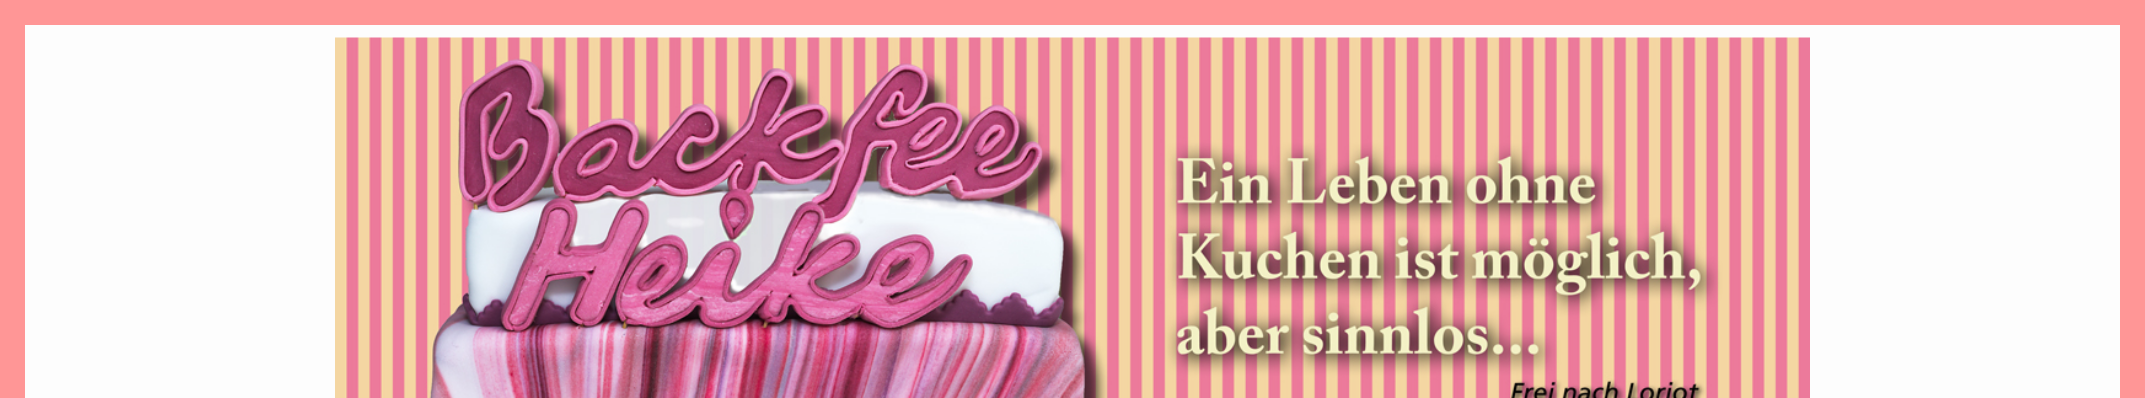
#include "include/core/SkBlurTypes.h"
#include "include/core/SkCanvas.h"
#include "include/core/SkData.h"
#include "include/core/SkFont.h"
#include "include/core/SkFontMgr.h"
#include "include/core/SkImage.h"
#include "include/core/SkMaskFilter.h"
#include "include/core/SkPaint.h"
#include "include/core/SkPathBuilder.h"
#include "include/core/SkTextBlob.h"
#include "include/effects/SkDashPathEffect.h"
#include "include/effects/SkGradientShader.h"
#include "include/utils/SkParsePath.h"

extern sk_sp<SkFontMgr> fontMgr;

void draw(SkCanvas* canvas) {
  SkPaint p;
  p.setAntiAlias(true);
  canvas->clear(SkColorSetRGB(255, 150, 150));
  p.setColor(SkColorSetRGB(253, 253, 253));
  canvas->drawRect(SkRect::MakeLTRB(25, 25, 2120, 398), p);
  canvas->drawImageRect(SkImages::DeferredFromEncodedData(SkData::MakeFromFileName("images/1.png")), SkRect::MakeLTRB(335, 37, 1810, 398), SkSamplingOptions());
}
